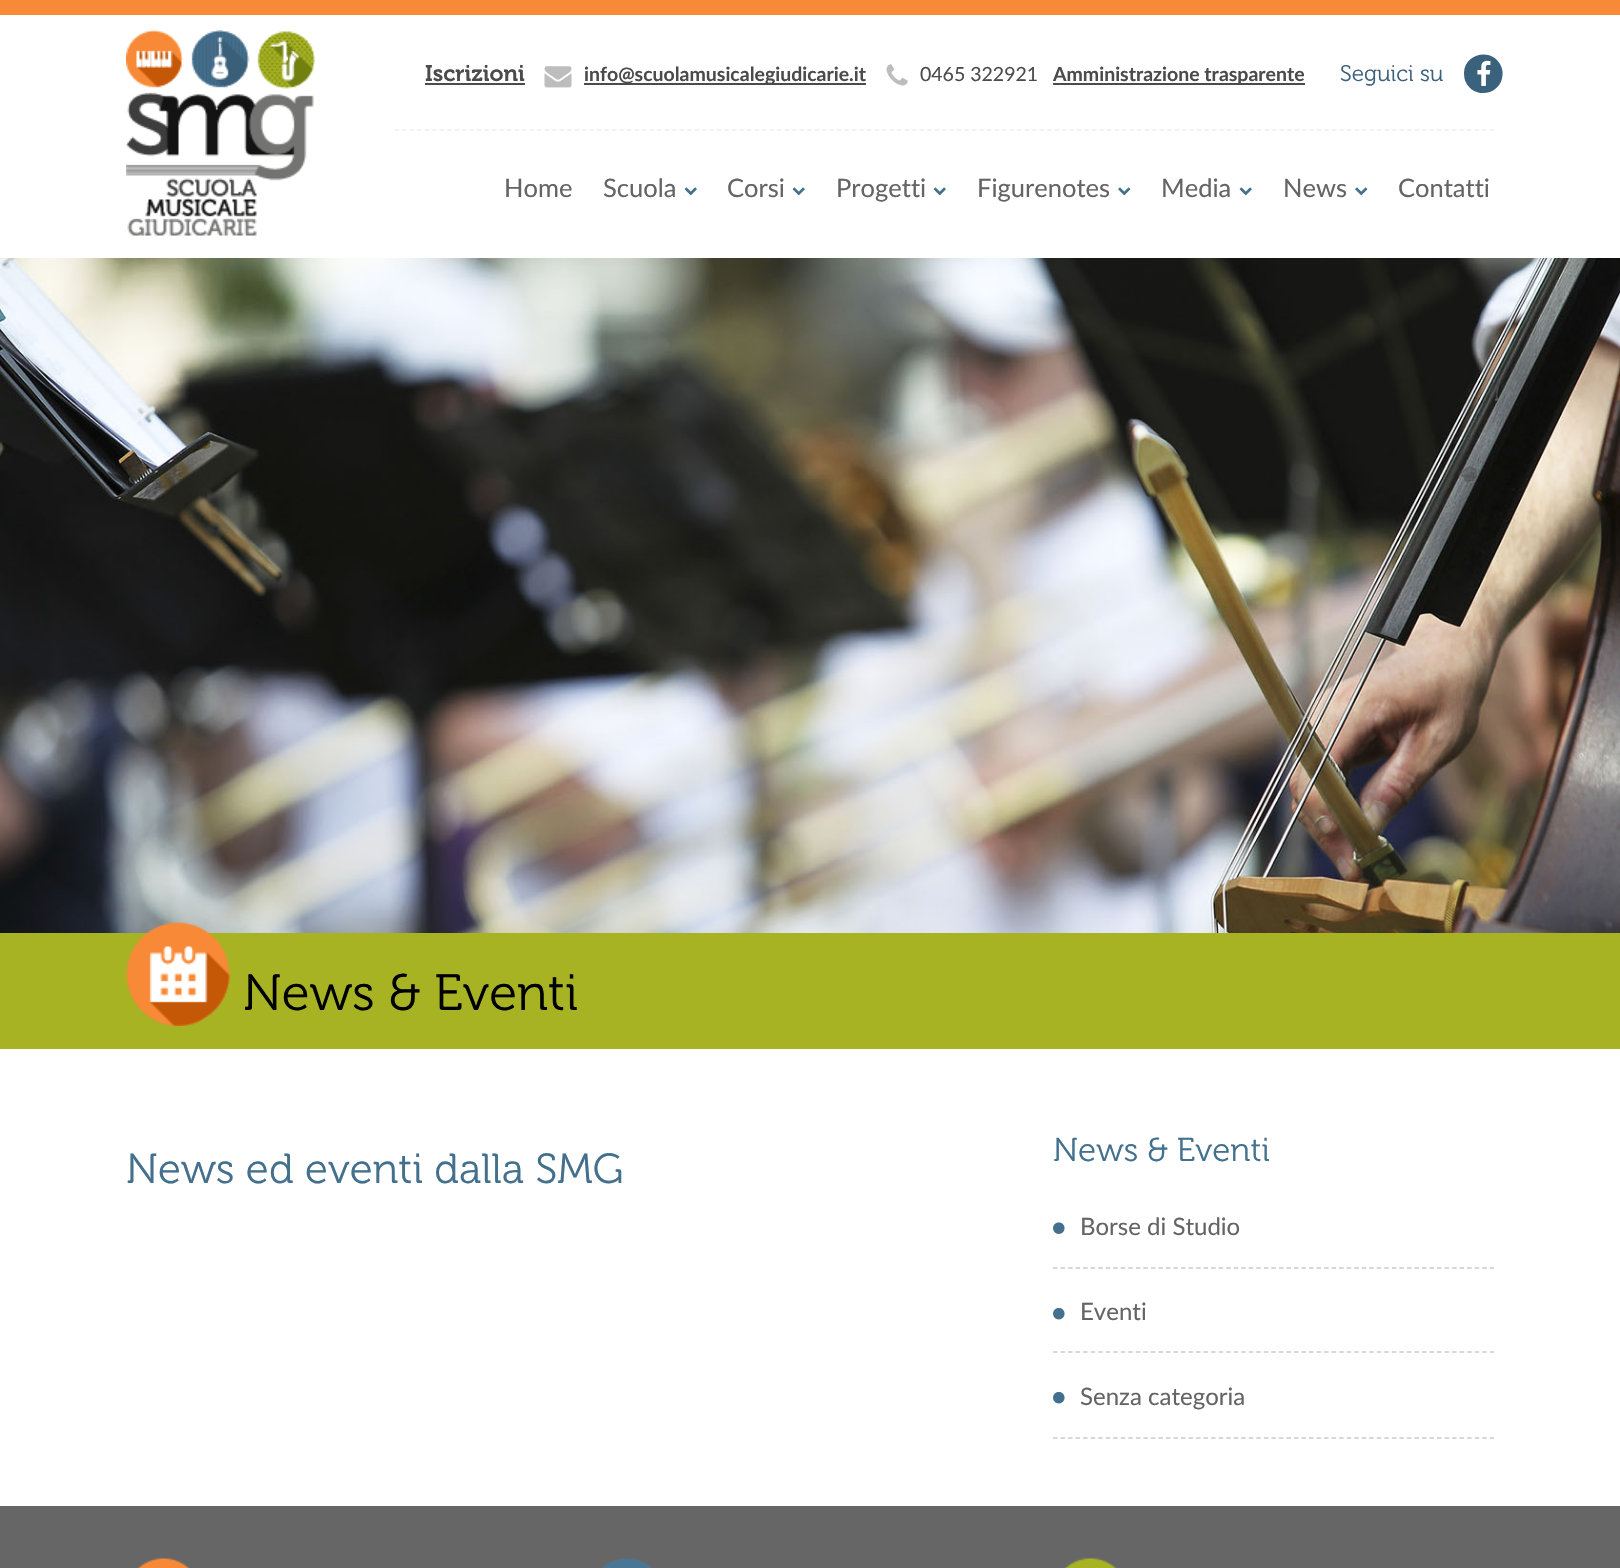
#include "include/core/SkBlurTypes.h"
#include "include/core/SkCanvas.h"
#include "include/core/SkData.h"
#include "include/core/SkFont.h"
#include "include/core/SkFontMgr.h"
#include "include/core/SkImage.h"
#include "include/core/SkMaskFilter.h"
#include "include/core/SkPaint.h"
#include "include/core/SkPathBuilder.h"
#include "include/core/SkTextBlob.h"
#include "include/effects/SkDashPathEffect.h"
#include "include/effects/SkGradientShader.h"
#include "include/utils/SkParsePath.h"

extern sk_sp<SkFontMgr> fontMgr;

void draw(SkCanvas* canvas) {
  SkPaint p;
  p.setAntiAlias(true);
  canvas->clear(SK_ColorWHITE);
  p.setColor(SkColorSetRGB(248, 137, 54));
  canvas->drawRect(SkRect::MakeLTRB(0, 0, 1620, 15), p);
  canvas->drawImageRect(SkImages::DeferredFromEncodedData(SkData::MakeFromFileName("images/1.png")), SkRect::MakeLTRB(126, 30, 315, 236), SkSamplingOptions());
  p.setColor(SkColorSetRGB(75, 75, 75));
  canvas->drawRect(SkRect::MakeLTRB(425, 83, 525, 85), p);
  canvas->drawImageRect(SkImages::DeferredFromEncodedData(SkData::MakeFromFileName("images/2.png")), SkRect::MakeLTRB(544, 66, 572, 88), SkSamplingOptions());
  canvas->drawRect(SkRect::MakeLTRB(584, 83, 866, 85), p);
  canvas->drawImageRect(SkImages::DeferredFromEncodedData(SkData::MakeFromFileName("images/3.png")), SkRect::MakeLTRB(886, 64, 908, 86), SkSamplingOptions());
  canvas->drawRect(SkRect::MakeLTRB(1053, 83, 1305, 85), p);
  p.setColor(SkColorSetRGB(59, 98, 124));
  canvas->drawPath(SkPathBuilder().moveTo(1500, 64).cubicTo(1502, 67.5f, 1503, 71.5f, 1502.5f, 75).cubicTo(1501.5f, 94, 1476, 100, 1466.5f, 83.5f).cubicTo(1464.5f, 80.5f, 1464, 76.5f, 1464, 72.5f).cubicTo(1465, 53.5f, 1490.5f, 48, 1500, 64).close().detach(), p);
  canvas->drawImageRect(SkImages::DeferredFromEncodedData(SkData::MakeFromFileName("images/4.png")), SkRect::MakeLTRB(1477, 60, 1491, 86), SkSamplingOptions());
  p.setStyle(SkPaint::kStroke_Style);
  p.setStrokeWidth(1.5f);
  p.setColor(SkColorSetRGB(240, 240, 240));
  p.setPathEffect(SkDashPathEffect::Make({{4.5f, 3}}, 0));
  canvas->drawPath(SkPathBuilder().moveTo(394.5f, 130).lineTo(1494, 130).detach(), p);
  p.setPathEffect(nullptr);
  canvas->drawImageRect(SkImages::DeferredFromEncodedData(SkData::MakeFromFileName("images/5.png")), SkRect::MakeLTRB(684, 187, 697, 196), SkSamplingOptions());
  canvas->drawImageRect(SkImages::DeferredFromEncodedData(SkData::MakeFromFileName("images/5.png")), SkRect::MakeLTRB(792, 187, 805, 196), SkSamplingOptions());
  canvas->drawImageRect(SkImages::DeferredFromEncodedData(SkData::MakeFromFileName("images/5.png")), SkRect::MakeLTRB(933, 187, 946, 196), SkSamplingOptions());
  canvas->drawImageRect(SkImages::DeferredFromEncodedData(SkData::MakeFromFileName("images/6.png")), SkRect::MakeLTRB(1118, 187, 1131, 196), SkSamplingOptions());
  canvas->drawImageRect(SkImages::DeferredFromEncodedData(SkData::MakeFromFileName("images/5.png")), SkRect::MakeLTRB(1239, 187, 1252, 196), SkSamplingOptions());
  canvas->drawImageRect(SkImages::DeferredFromEncodedData(SkData::MakeFromFileName("images/6.png")), SkRect::MakeLTRB(1355, 187, 1368, 196), SkSamplingOptions());
  canvas->drawImageRect(SkImages::DeferredFromEncodedData(SkData::MakeFromFileName("images/7.png")), SkRect::MakeLTRB(0, 258, 1620, 933), SkSamplingOptions());
  p.setStyle(SkPaint::kFill_Style);
  p.setColor(SkColorSetRGB(167, 179, 35));
  canvas->drawRect(SkRect::MakeLTRB(0, 933, 1620, 1049), p);
  canvas->drawImageRect(SkImages::DeferredFromEncodedData(SkData::MakeFromFileName("images/8.png")), SkRect::MakeLTRB(126, 922, 230, 1026), SkSamplingOptions());
  p.setStyle(SkPaint::kStroke_Style);
  p.setColor(SkColorSetRGB(204, 204, 204));
  p.setPathEffect(SkDashPathEffect::Make({{4.5f, 3.03f}}, 0));
  canvas->drawPath(SkPathBuilder().moveTo(1053, 1268).lineTo(1494, 1268).detach(), p);
  p.setPathEffect(nullptr);
  canvas->drawImageRect(SkImages::DeferredFromEncodedData(SkData::MakeFromFileName("images/9.png")), SkRect::MakeLTRB(1053, 1222, 1065, 1234), SkSamplingOptions());
  p.setPathEffect(SkDashPathEffect::Make({{4.5f, 3.03f}}, 0));
  canvas->drawPath(SkPathBuilder().moveTo(1053, 1352).lineTo(1494, 1352).detach(), p);
  p.setPathEffect(nullptr);
  canvas->drawImageRect(SkImages::DeferredFromEncodedData(SkData::MakeFromFileName("images/10.png")), SkRect::MakeLTRB(1053, 1307, 1065, 1320), SkSamplingOptions());
  p.setPathEffect(SkDashPathEffect::Make({{4.5f, 3.03f}}, 0));
  canvas->drawPath(SkPathBuilder().moveTo(1053, 1438).lineTo(1494, 1438).detach(), p);
  p.setPathEffect(nullptr);
  canvas->drawImageRect(SkImages::DeferredFromEncodedData(SkData::MakeFromFileName("images/10.png")), SkRect::MakeLTRB(1053, 1391, 1065, 1404), SkSamplingOptions());
  p.setStyle(SkPaint::kFill_Style);
  p.setColor(SkColorSetRGB(102, 102, 102));
  canvas->drawRect(SkRect::MakeLTRB(0, 1506, 1620, 1568), p);
  canvas->drawImageRect(SkImages::DeferredFromEncodedData(SkData::MakeFromFileName("images/11.png")), SkRect::MakeLTRB(137, 1558, 190, 1568), SkSamplingOptions());
  canvas->drawImageRect(SkImages::DeferredFromEncodedData(SkData::MakeFromFileName("images/12.png")), SkRect::MakeLTRB(601, 1558, 653, 1568), SkSamplingOptions());
  canvas->drawImageRect(SkImages::DeferredFromEncodedData(SkData::MakeFromFileName("images/13.png")), SkRect::MakeLTRB(1064, 1558, 1117, 1568), SkSamplingOptions());
  SkFont font1(fontMgr->matchFamilyStyle("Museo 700", SkFontStyle(600, SkFontStyle::kNormal_Width, SkFontStyle::kUpright_Slant)), 22.5f);
  font1.setSubpixel(true);
  p.setColor(SkColorSetRGB(75, 75, 75));
  canvas->drawString("Iscrizioni", 425, 81, font1, p);
  SkFont font2(fontMgr->matchFamilyStyle("Lato", SkFontStyle::Bold()), 19.5f);
  font2.setSubpixel(true);
  canvas->drawString("info@scuolamusicalegiudicarie.it", 584, 81, font2, p);
  SkFont font3(fontMgr->matchFamilyStyle("Lato", SkFontStyle::Normal()), 19.5f);
  font3.setSubpixel(true);
  canvas->drawString("0465 322921", 920, 81, font3, p);
  canvas->drawString("Amministrazione trasparente", 1053, 81, font2, p);
  SkFont font4(fontMgr->matchFamilyStyle("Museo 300", SkFontStyle(300, SkFontStyle::kNormal_Width, SkFontStyle::kUpright_Slant)), 22.5f);
  font4.setSubpixel(true);
  p.setColor(SkColorSetRGB(59, 98, 124));
  canvas->drawString("Seguici su", 1340, 81, font4, p);
  SkFont font5(fontMgr->matchFamilyStyle("Lato", SkFontStyle::Normal()), 25.5f);
  font5.setSubpixel(true);
  p.setColor(SkColorSetRGB(100, 100, 100));
  canvas->drawString("Home", 504, 197, font5, p);
  canvas->drawString("Scuola", 603, 197, font5, p);
  canvas->drawString("Corsi", 727, 197, font5, p);
  canvas->drawString("Progetti", 836, 197, font5, p);
  canvas->drawString("Figurenotes", 977, 197, font5, p);
  canvas->drawString("Media", 1161, 197, font5, p);
  canvas->drawString("News", 1283, 197, font5, p);
  canvas->drawString("Contatti", 1398, 197, font5, p);
  SkFont font6(fontMgr->matchFamilyStyle("Museo 300", SkFontStyle(300, SkFontStyle::kNormal_Width, SkFontStyle::kUpright_Slant)), 51);
  font6.setSubpixel(true);
  p.setColor(SK_ColorBLACK);
  canvas->drawString("News & Eventi", 243, 1010, font6, p);
  SkFont font7(fontMgr->matchFamilyStyle("Museo 300", SkFontStyle(300, SkFontStyle::kNormal_Width, SkFontStyle::kUpright_Slant)), 42);
  font7.setSubpixel(true);
  p.setColor(SkColorSetRGB(67, 112, 141));
  canvas->drawString("News ed eventi dalla SMG", 126, 1183, font7, p);
  SkFont font8(fontMgr->matchFamilyStyle("Museo 300", SkFontStyle(300, SkFontStyle::kNormal_Width, SkFontStyle::kUpright_Slant)), 33);
  font8.setSubpixel(true);
  canvas->drawString("News & Eventi", 1053, 1161, font8, p);
  SkFont font9(fontMgr->matchFamilyStyle("Lato", SkFontStyle::Normal()), 24);
  font9.setSubpixel(true);
  p.setColor(SkColorSetRGB(100, 100, 100));
  canvas->drawString("Borse di Studio", 1080, 1235, font9, p);
  canvas->drawString("Eventi", 1080, 1320, font9, p);
  canvas->drawString("Senza categoria", 1080, 1405, font9, p);
}
